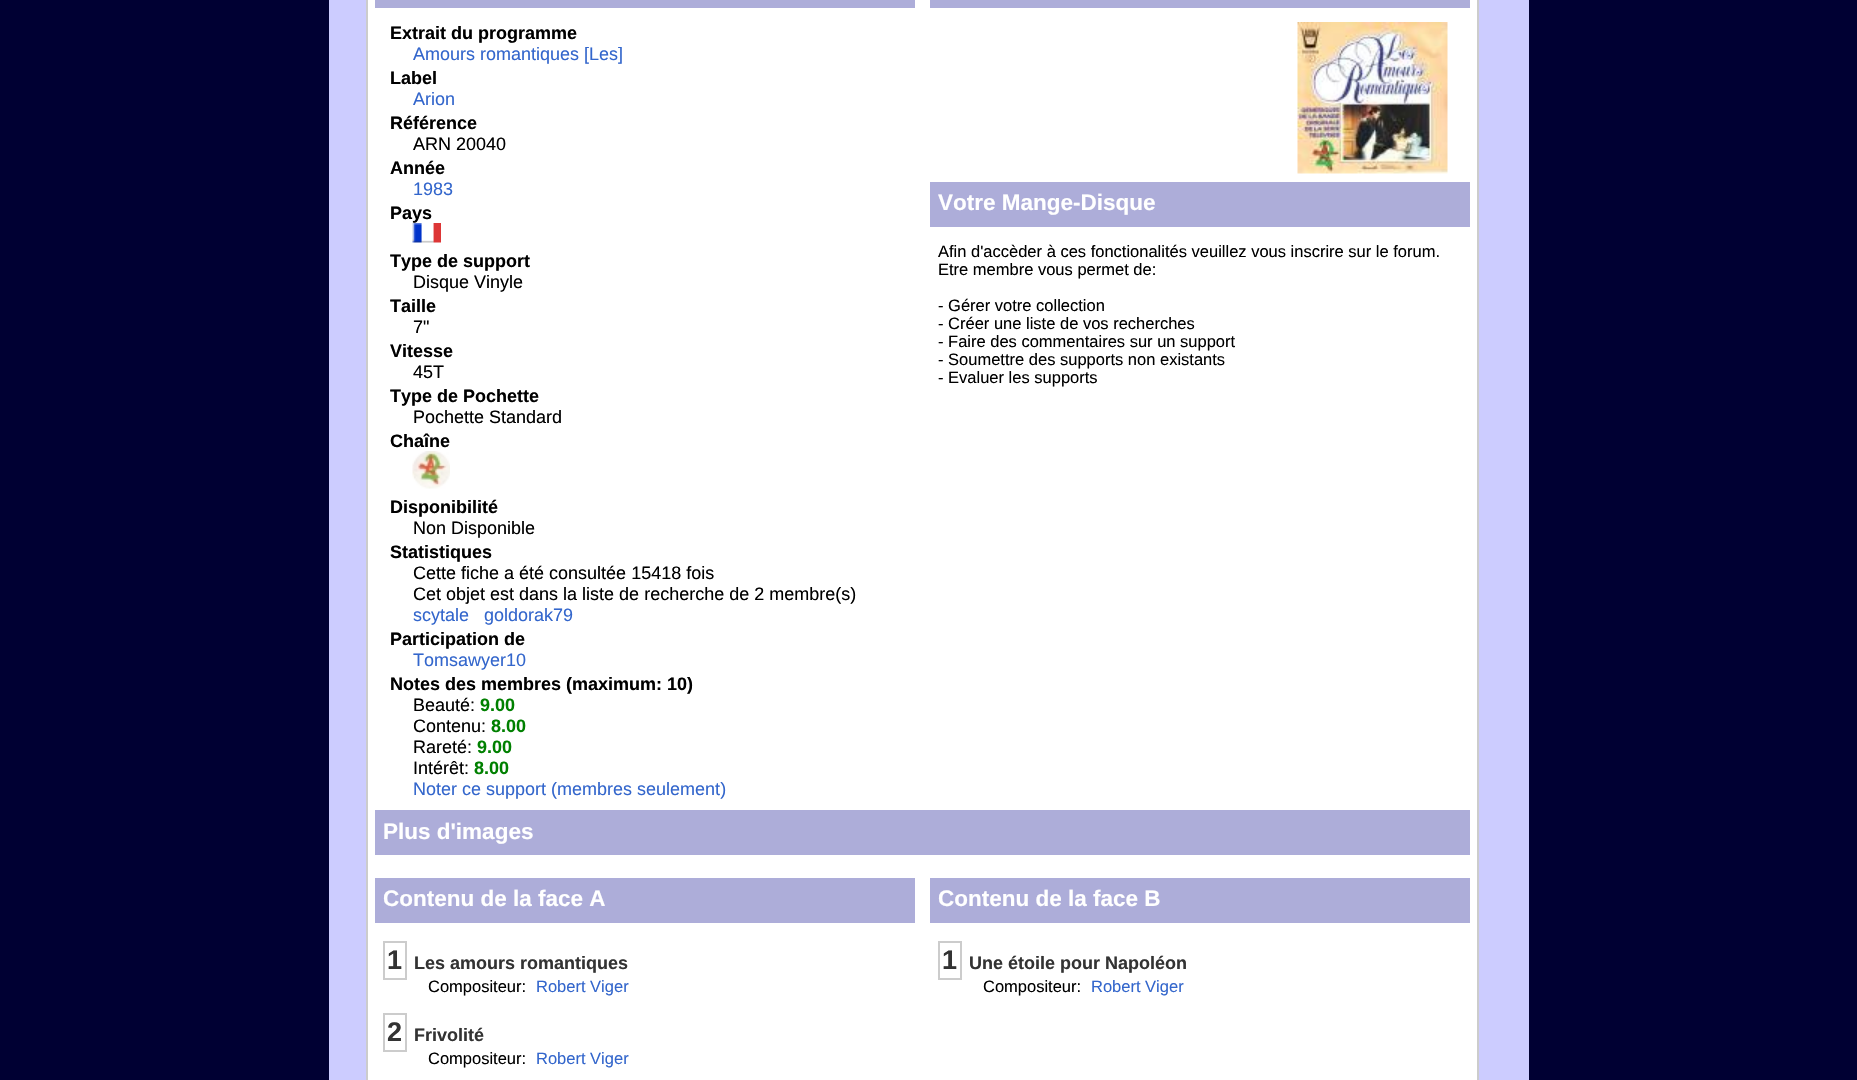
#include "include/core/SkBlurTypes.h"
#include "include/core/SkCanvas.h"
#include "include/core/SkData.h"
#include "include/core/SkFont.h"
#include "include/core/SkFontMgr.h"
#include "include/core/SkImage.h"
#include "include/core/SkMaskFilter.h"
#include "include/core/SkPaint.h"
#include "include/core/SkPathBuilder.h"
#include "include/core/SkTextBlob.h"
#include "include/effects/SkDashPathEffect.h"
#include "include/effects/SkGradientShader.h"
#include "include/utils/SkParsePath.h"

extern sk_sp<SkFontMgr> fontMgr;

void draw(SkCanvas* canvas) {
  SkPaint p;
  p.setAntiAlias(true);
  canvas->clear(SkColorSetRGB(0, 0, 51));
  p.setColor(SkColorSetRGB(204, 204, 255));
  canvas->drawRect(SkRect::MakeLTRB(329, 0, 1529, 1080), p);
  p.setColor(SK_ColorWHITE);
  canvas->drawRect(SkRect::MakeLTRB(367, -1, 1478, 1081), p);
  p.setStyle(SkPaint::kStroke_Style);
  p.setStrokeWidth(2);
  p.setColor(SkColorSetRGB(204, 204, 204));
  canvas->drawRect(SkRect::MakeLTRB(367, -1, 1478, 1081), p);
  p.setStyle(SkPaint::kFill_Style);
  p.setColor(SkColorSetRGB(173, 173, 217));
  canvas->drawRect(SkRect::MakeLTRB(375, 0, 915, 8), p);
  canvas->drawImageRect(SkImages::DeferredFromEncodedData(SkData::MakeFromFileName("images/1.png")), SkRect::MakeLTRB(412, 223, 441, 243), SkSamplingOptions());
  canvas->drawImageRect(SkImages::DeferredFromEncodedData(SkData::MakeFromFileName("images/2.png")), SkRect::MakeLTRB(412, 451, 450, 489), SkSamplingOptions());
  canvas->drawRect(SkRect::MakeLTRB(930, 0, 1470, 8), p);
  canvas->drawImageRect(SkImages::DeferredFromEncodedData(SkData::MakeFromFileName("images/3.png")), SkRect::MakeLTRB(1297, 22, 1448, 174), SkSamplingOptions());
  canvas->drawRect(SkRect::MakeLTRB(930, 182, 1470, 227), p);
  canvas->drawRect(SkRect::MakeLTRB(375, 810, 1470, 855), p);
  canvas->drawRect(SkRect::MakeLTRB(375, 878, 915, 923), p);
  p.setStyle(SkPaint::kStroke_Style);
  p.setColor(SkColorSetRGB(204, 204, 204));
  canvas->drawRect(SkRect::MakeLTRB(384, 942, 406, 979), p);
  canvas->drawRect(SkRect::MakeLTRB(384, 1014, 406, 1051), p);
  p.setStyle(SkPaint::kFill_Style);
  p.setColor(SkColorSetRGB(173, 173, 217));
  canvas->drawRect(SkRect::MakeLTRB(930, 878, 1470, 923), p);
  p.setStyle(SkPaint::kStroke_Style);
  p.setColor(SkColorSetRGB(204, 204, 204));
  canvas->drawRect(SkRect::MakeLTRB(939, 942, 961, 979), p);
  SkFont font1(fontMgr->matchFamilyStyle("Liberation Sans", SkFontStyle::Bold()), 18);
  font1.setSubpixel(true);
  p.setStyle(SkPaint::kFill_Style);
  p.setColor(SK_ColorBLACK);
  canvas->drawString("Extrait du programme", 390, 39, font1, p);
  SkFont font2(fontMgr->matchFamilyStyle("Liberation Sans", SkFontStyle::Normal()), 18);
  font2.setSubpixel(true);
  p.setColor(SkColorSetRGB(51, 102, 204));
  canvas->drawString("Amours romantiques [Les]", 413, 60, font2, p);
  p.setColor(SK_ColorBLACK);
  canvas->drawString("Label", 390, 84, font1, p);
  p.setColor(SkColorSetRGB(51, 102, 204));
  canvas->drawString("Arion", 413, 105, font2, p);
  p.setColor(SK_ColorBLACK);
  canvas->drawString("Référence", 390, 129, font1, p);
  canvas->drawString("ARN 20040", 413, 150, font2, p);
  canvas->drawString("Année", 390, 174, font1, p);
  p.setColor(SkColorSetRGB(51, 102, 204));
  canvas->drawString("1983", 413, 195, font2, p);
  p.setColor(SK_ColorBLACK);
  canvas->drawString("Pays", 390, 219, font1, p);
  canvas->drawString("Type de support", 390, 267, font1, p);
  canvas->drawString("Disque Vinyle", 413, 288, font2, p);
  canvas->drawString("Taille", 390, 312, font1, p);
  canvas->drawString("7\"", 413, 333, font2, p);
  canvas->drawString("Vitesse", 390, 357, font1, p);
  canvas->drawString("45T", 413, 378, font2, p);
  canvas->drawString("Type de Pochette", 390, 402, font1, p);
  canvas->drawString("Pochette Standard", 413, 423, font2, p);
  canvas->drawString("Chaîne", 390, 447, font1, p);
  canvas->drawString("Disponibilité", 390, 513, font1, p);
  canvas->drawString("Non Disponible", 413, 534, font2, p);
  canvas->drawString("Statistiques", 390, 558, font1, p);
  canvas->drawString("Cette fiche a été consultée 15418 fois", 413, 579, font2, p);
  canvas->drawString("Cet objet est dans la liste de recherche de 2 membre(s)", 413, 600, font2, p);
  p.setColor(SkColorSetRGB(51, 102, 204));
  canvas->drawString("scytale", 413, 621, font2, p);
  canvas->drawString("goldorak79", 484, 621, font2, p);
  p.setColor(SK_ColorBLACK);
  canvas->drawString("Participation de", 390, 645, font1, p);
  p.setColor(SkColorSetRGB(51, 102, 204));
  canvas->drawString("Tomsawyer10", 413, 666, font2, p);
  p.setColor(SK_ColorBLACK);
  canvas->drawString("Notes des membres (maximum: 10)", 390, 690, font1, p);
  canvas->drawString("Beauté:", 413, 711, font2, p);
  p.setColor(SkColorSetRGB(0, 128, 0));
  canvas->drawString("9.00", 480, 711, font1, p);
  p.setColor(SK_ColorBLACK);
  canvas->drawString("Contenu:", 413, 732, font2, p);
  p.setColor(SkColorSetRGB(0, 128, 0));
  canvas->drawString("8.00", 491, 732, font1, p);
  p.setColor(SK_ColorBLACK);
  canvas->drawString("Rareté:", 413, 753, font2, p);
  p.setColor(SkColorSetRGB(0, 128, 0));
  canvas->drawString("9.00", 477, 753, font1, p);
  p.setColor(SK_ColorBLACK);
  canvas->drawString("Intérêt:", 413, 774, font2, p);
  p.setColor(SkColorSetRGB(0, 128, 0));
  canvas->drawString("8.00", 474, 774, font1, p);
  p.setColor(SkColorSetRGB(51, 102, 204));
  canvas->drawString("Noter ce support (membres seulement)", 413, 795, font2, p);
  SkFont font3(fontMgr->matchFamilyStyle("Liberation Sans", SkFontStyle::Bold()), 22.5f);
  font3.setSubpixel(true);
  p.setColor(SK_ColorWHITE);
  canvas->drawString("Votre Mange-Disque", 938, 210, font3, p);
  SkFont font4(fontMgr->matchFamilyStyle("Liberation Sans", SkFontStyle::Normal()), 16.5f);
  font4.setSubpixel(true);
  p.setColor(SK_ColorBLACK);
  canvas->drawString("Afin d'accèder à ces fonctionalités veuillez vous inscrire sur le forum.", 938, 257, font4, p);
  canvas->drawString("Etre membre vous permet de:", 938, 275, font4, p);
  canvas->drawString("- Gérer votre collection", 938, 311, font4, p);
  canvas->drawString("- Créer une liste de vos recherches", 938, 329, font4, p);
  canvas->drawString("- Faire des commentaires sur un support", 938, 347, font4, p);
  canvas->drawString("- Soumettre des supports non existants", 938, 365, font4, p);
  canvas->drawString("- Evaluer les supports", 938, 383, font4, p);
  p.setColor(SK_ColorWHITE);
  canvas->drawString("Plus d'images", 383, 839, font3, p);
  canvas->drawString("Contenu de la face A", 383, 906, font3, p);
  SkFont font5(fontMgr->matchFamilyStyle("Liberation Sans", SkFontStyle::Bold()), 27);
  font5.setSubpixel(true);
  p.setColor(SkColorSetRGB(51, 51, 51));
  canvas->drawString("1", 387, 969, font5, p);
  canvas->drawString("Les amours romantiques", 414, 969, font1, p);
  p.setColor(SK_ColorBLACK);
  canvas->drawString("Compositeur:", 428, 992, font4, p);
  p.setColor(SkColorSetRGB(51, 102, 204));
  canvas->drawString("Robert Viger", 536, 992, font4, p);
  p.setColor(SkColorSetRGB(51, 51, 51));
  canvas->drawString("2", 387, 1041, font5, p);
  canvas->drawString("Frivolité", 414, 1041, font1, p);
  p.setColor(SK_ColorBLACK);
  canvas->drawString("Compositeur:", 428, 1064, font4, p);
  p.setColor(SkColorSetRGB(51, 102, 204));
  canvas->drawString("Robert Viger", 536, 1064, font4, p);
  p.setColor(SK_ColorWHITE);
  canvas->drawString("Contenu de la face B", 938, 906, font3, p);
  p.setColor(SkColorSetRGB(51, 51, 51));
  canvas->drawString("1", 942, 969, font5, p);
  canvas->drawString("Une étoile pour Napoléon", 969, 969, font1, p);
  p.setColor(SK_ColorBLACK);
  canvas->drawString("Compositeur:", 983, 992, font4, p);
  p.setColor(SkColorSetRGB(51, 102, 204));
  canvas->drawString("Robert Viger", 1091, 992, font4, p);
}
